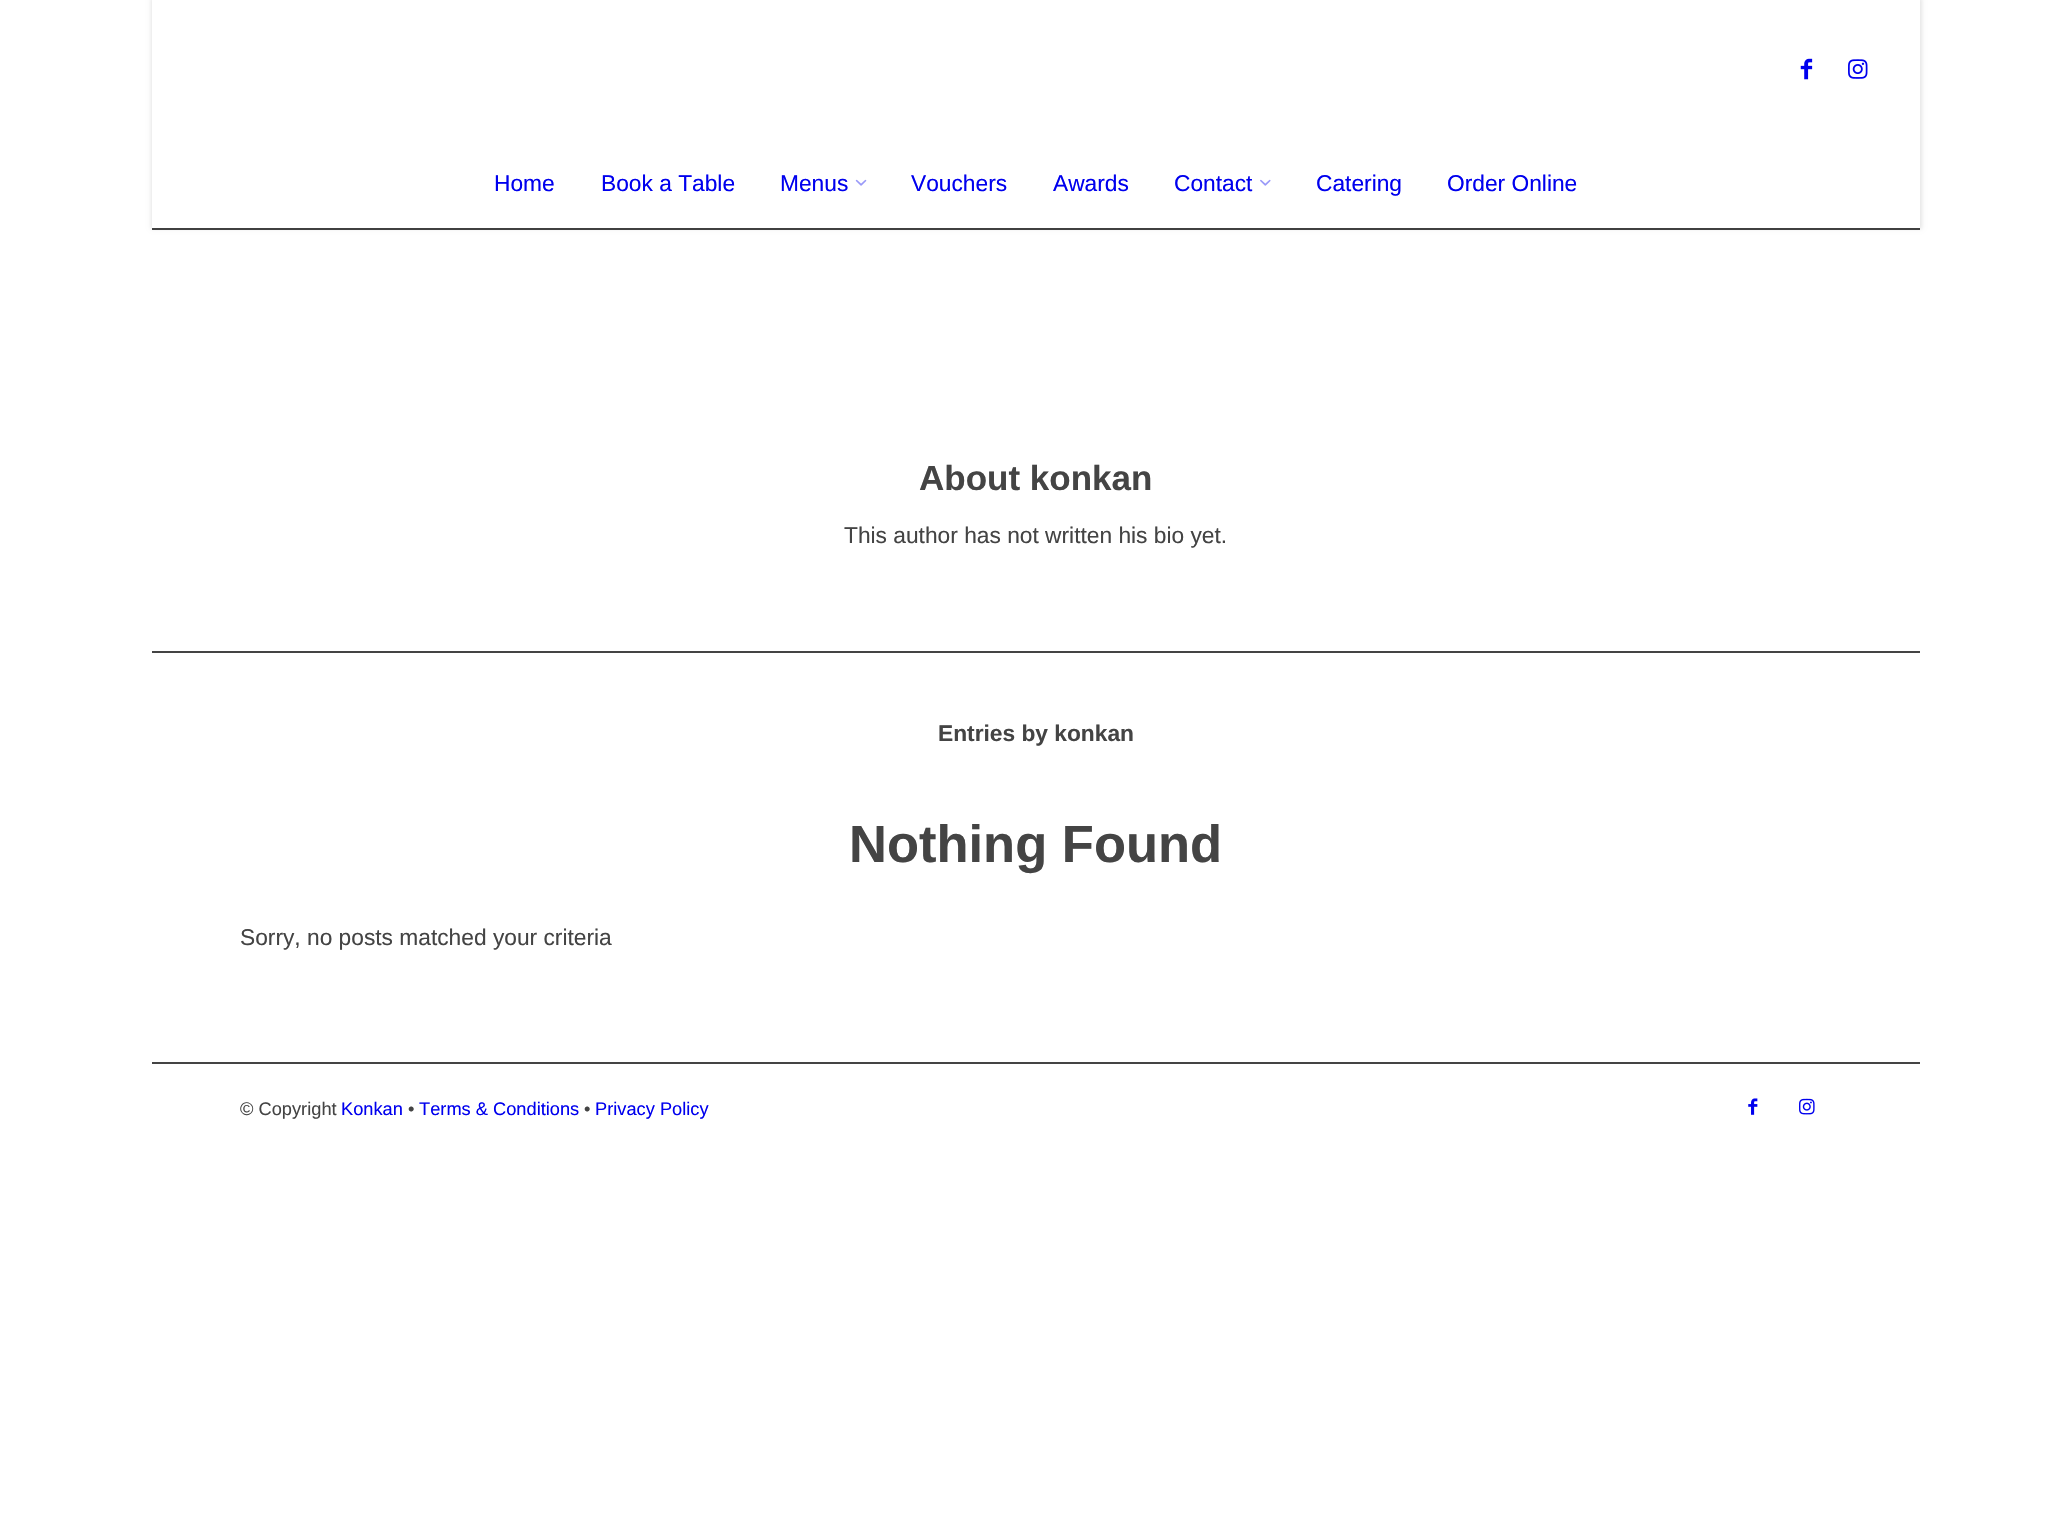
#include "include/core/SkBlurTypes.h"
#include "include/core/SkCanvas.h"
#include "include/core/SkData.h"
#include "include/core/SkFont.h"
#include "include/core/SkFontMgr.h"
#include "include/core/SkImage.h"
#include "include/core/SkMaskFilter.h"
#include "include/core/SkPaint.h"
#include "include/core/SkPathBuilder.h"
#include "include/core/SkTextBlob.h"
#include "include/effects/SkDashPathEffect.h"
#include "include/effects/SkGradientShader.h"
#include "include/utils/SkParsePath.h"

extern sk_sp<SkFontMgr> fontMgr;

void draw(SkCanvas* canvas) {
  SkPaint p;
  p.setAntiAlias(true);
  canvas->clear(SK_ColorWHITE);
  p.setColor(SkColorSetRGB(68, 68, 68));
  canvas->drawRect(SkRect::MakeLTRB(152, 228, 1920, 230), p);
  canvas->save();
  canvas->clipPath(SkPathBuilder(SkPathFillType::kEvenOdd).moveTo(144, 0).lineTo(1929, 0).lineTo(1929, 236).lineTo(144, 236).close().moveTo(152, 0).lineTo(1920, 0).lineTo(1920, 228).lineTo(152, 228).close().detach(), true);
  p.setColor(SkColorSetARGB(26, 0, 0, 0));
  p.setMaskFilter(SkMaskFilter::MakeBlur(kNormal_SkBlurStyle, 2));
  canvas->drawRect(SkRect::MakeLTRB(151, -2, 1922, 229), p);
  p.setMaskFilter(nullptr);
  canvas->restore();
  canvas->drawImageRect(SkImages::DeferredFromEncodedData(SkData::MakeFromFileName("images/1.png")), SkRect::MakeLTRB(1800, 58, 1813, 80), SkSamplingOptions());
  canvas->drawImageRect(SkImages::DeferredFromEncodedData(SkData::MakeFromFileName("images/2.png")), SkRect::MakeLTRB(1848, 59, 1868, 79), SkSamplingOptions());
  canvas->drawImageRect(SkImages::DeferredFromEncodedData(SkData::MakeFromFileName("images/3.png")), SkRect::MakeLTRB(855, 179, 867, 186), SkSamplingOptions());
  canvas->drawImageRect(SkImages::DeferredFromEncodedData(SkData::MakeFromFileName("images/4.png")), SkRect::MakeLTRB(1260, 179, 1271, 186), SkSamplingOptions());
  p.setColor(SkColorSetRGB(68, 68, 68));
  canvas->drawRect(SkRect::MakeLTRB(152, 651, 1920, 653), p);
  canvas->drawRect(SkRect::MakeLTRB(152, 1062, 1920, 1064), p);
  canvas->drawImageRect(SkImages::DeferredFromEncodedData(SkData::MakeFromFileName("images/5.png")), SkRect::MakeLTRB(1748, 1098, 1758, 1115), SkSamplingOptions());
  canvas->drawImageRect(SkImages::DeferredFromEncodedData(SkData::MakeFromFileName("images/6.png")), SkRect::MakeLTRB(1799, 1098, 1815, 1115), SkSamplingOptions());
  SkFont font1(fontMgr->matchFamilyStyle("Liberation Sans", SkFontStyle::Normal()), 22.75f);
  font1.setSubpixel(true);
  p.setColor(SkColorSetRGB(0, 0, 238));
  canvas->drawString("Home", 494, 191, font1, p);
  canvas->drawString("Book a Table", 601, 191, font1, p);
  canvas->drawString("Menus", 780, 191, font1, p);
  canvas->drawString("Vouchers", 911, 191, font1, p);
  canvas->drawString("Awards", 1053, 191, font1, p);
  canvas->drawString("Contact", 1174, 191, font1, p);
  canvas->drawString("Catering", 1316, 191, font1, p);
  canvas->drawString("Order Online", 1447, 191, font1, p);
  SkFont font2(fontMgr->matchFamilyStyle("Liberation Sans", SkFontStyle::Bold()), 35);
  font2.setSubpixel(true);
  p.setColor(SkColorSetRGB(68, 68, 68));
  canvas->drawString("About konkan", 919, 490, font2, p);
  canvas->drawString("This author has not written his bio yet.", 844, 543, font1, p);
  SkFont font3(fontMgr->matchFamilyStyle("Liberation Sans", SkFontStyle::Bold()), 22.75f);
  font3.setSubpixel(true);
  canvas->drawString("Entries by konkan", 938, 741, font3, p);
  SkFont font4(fontMgr->matchFamilyStyle("Liberation Sans", SkFontStyle::Bold()), 52.5f);
  font4.setSubpixel(true);
  canvas->drawString("Nothing Found", 849, 862, font4, p);
  canvas->drawString("Sorry, no posts matched your criteria", 240, 945, font1, p);
  SkFont font5(fontMgr->matchFamilyStyle("Liberation Sans", SkFontStyle::Normal()), 18.25f);
  font5.setSubpixel(true);
  canvas->drawString("© Copyright", 240, 1115, font5, p);
  p.setColor(SkColorSetRGB(0, 0, 238));
  canvas->drawString("Konkan", 341, 1115, font5, p);
  p.setColor(SkColorSetRGB(68, 68, 68));
  canvas->drawString("•", 408, 1115, font5, p);
  p.setColor(SkColorSetRGB(0, 0, 238));
  canvas->drawString("Terms & Conditions", 419, 1115, font5, p);
  p.setColor(SkColorSetRGB(68, 68, 68));
  canvas->drawString("•", 584, 1115, font5, p);
  p.setColor(SkColorSetRGB(0, 0, 238));
  canvas->drawString("Privacy Policy", 595, 1115, font5, p);
}
